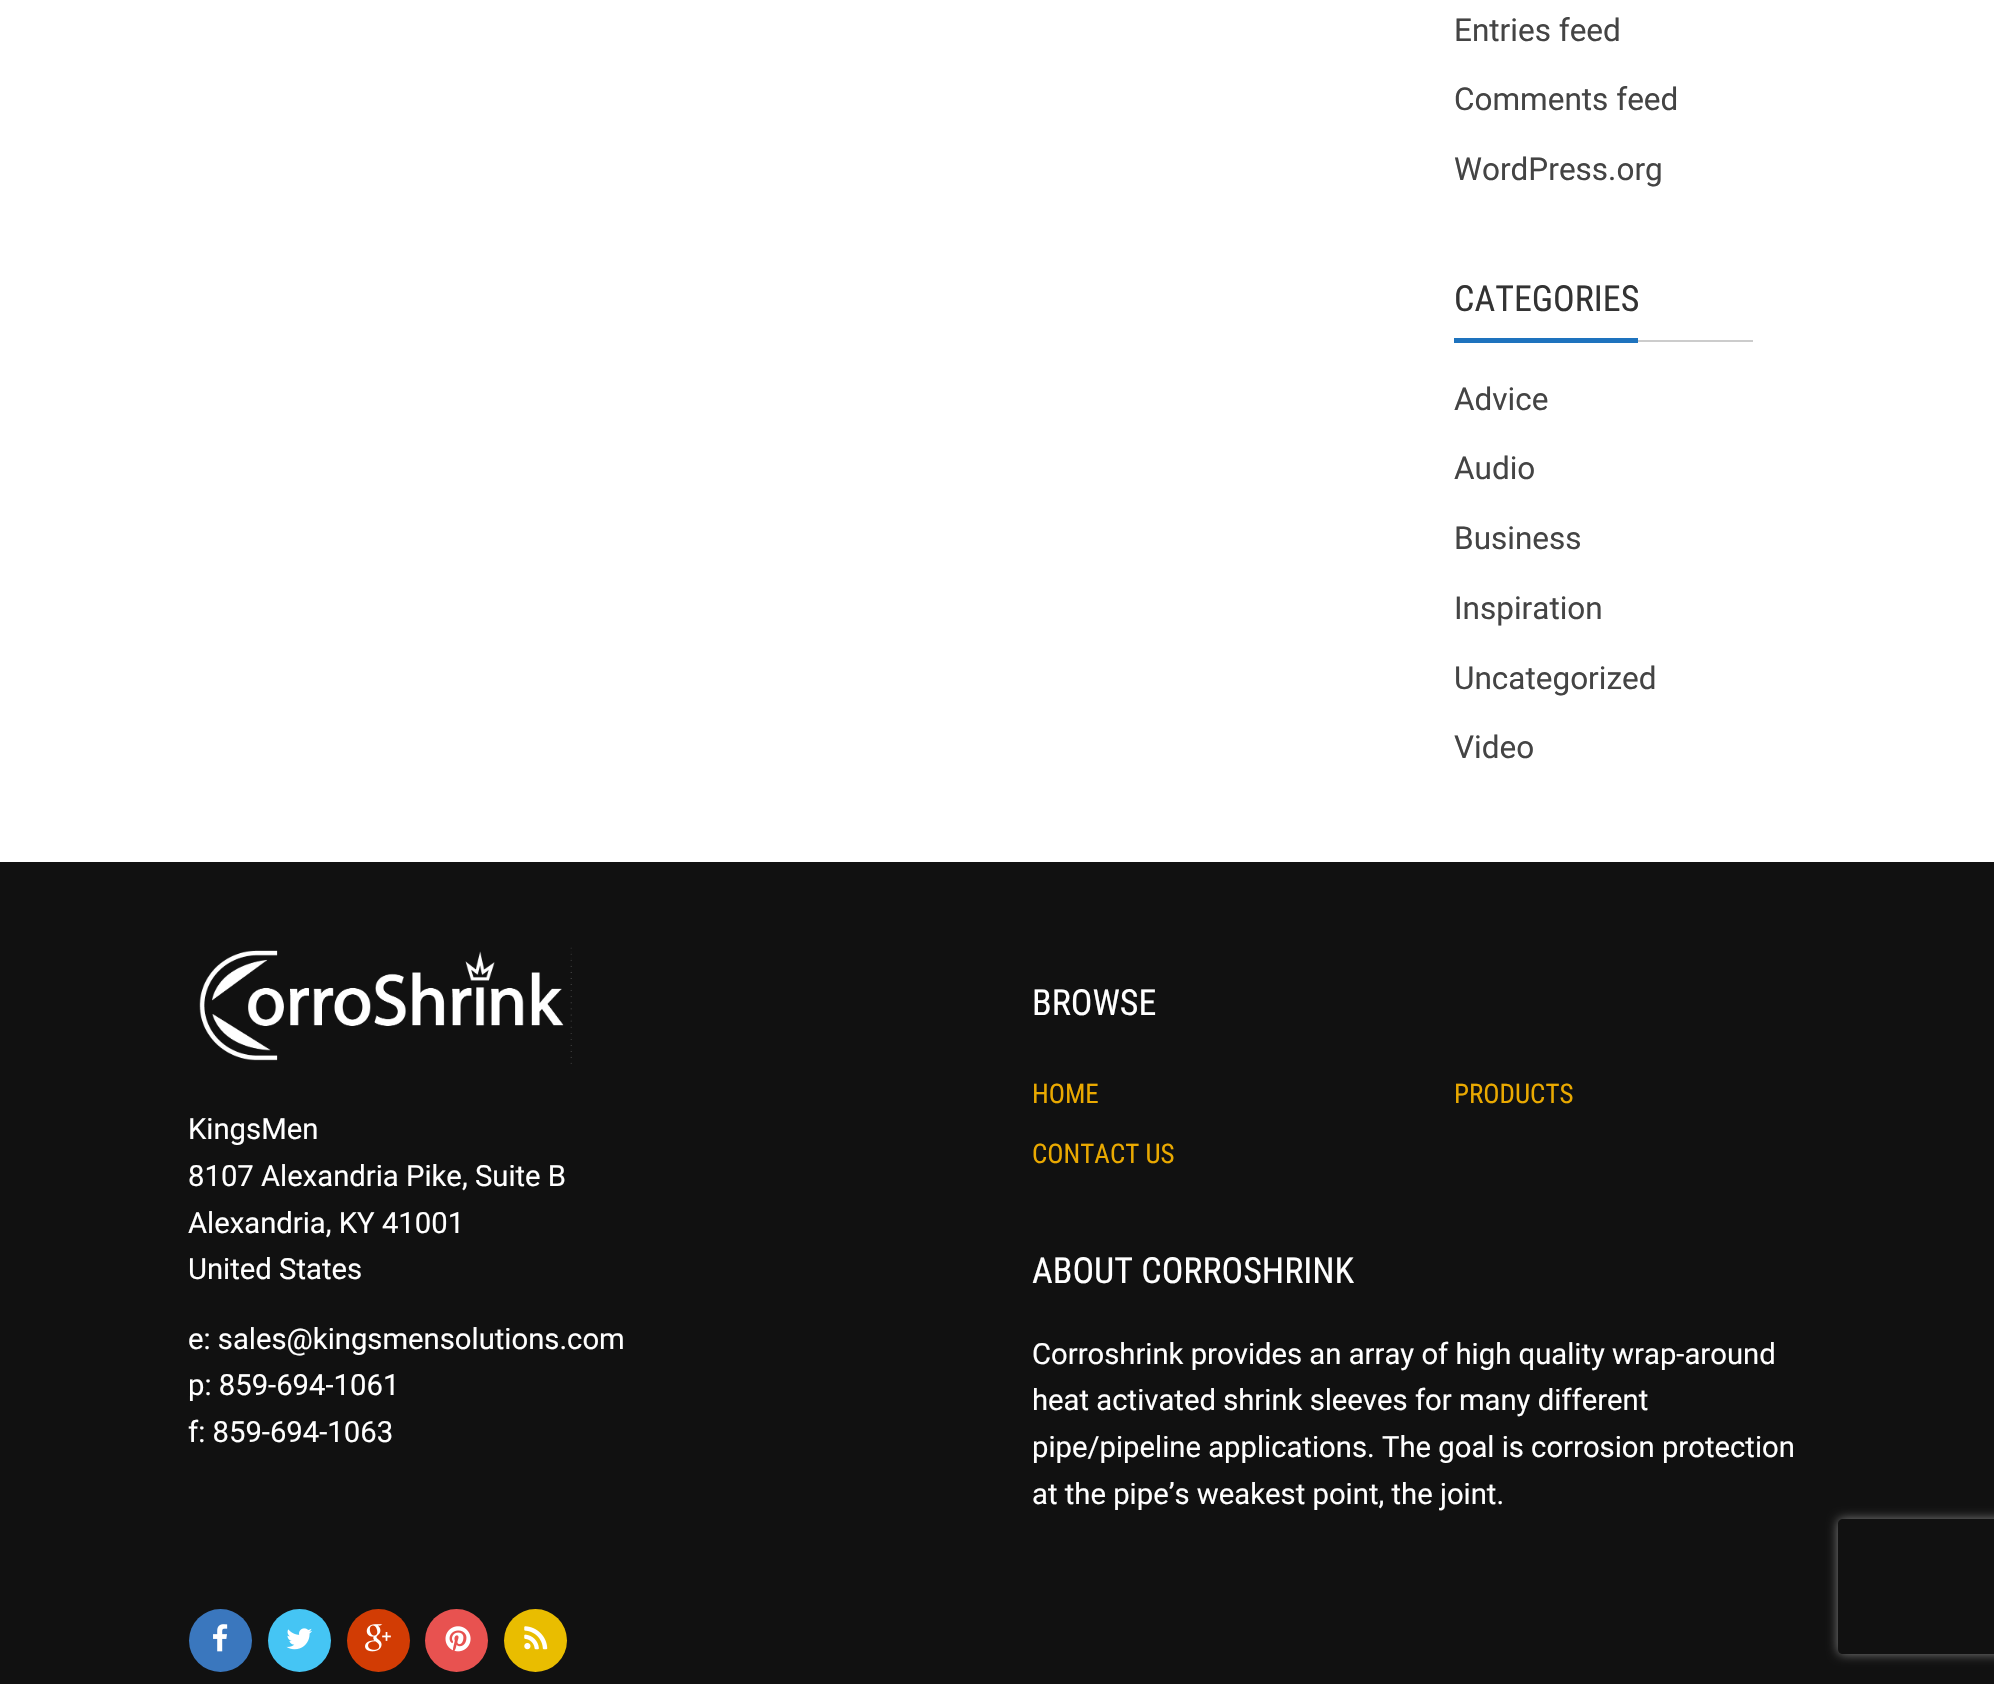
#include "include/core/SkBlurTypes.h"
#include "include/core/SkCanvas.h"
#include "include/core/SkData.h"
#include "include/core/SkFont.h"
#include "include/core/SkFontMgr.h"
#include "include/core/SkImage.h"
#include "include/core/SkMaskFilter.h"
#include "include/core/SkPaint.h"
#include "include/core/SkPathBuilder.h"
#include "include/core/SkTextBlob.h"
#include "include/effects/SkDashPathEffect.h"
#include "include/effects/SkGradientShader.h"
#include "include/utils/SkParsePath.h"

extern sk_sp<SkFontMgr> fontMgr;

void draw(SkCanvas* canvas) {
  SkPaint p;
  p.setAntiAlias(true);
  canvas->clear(SK_ColorWHITE);
  p.setColor(SkColorSetRGB(204, 204, 204));
  canvas->drawRect(SkRect::MakeLTRB(1638, 340, 1753, 342), p);
  p.setColor(SkColorSetRGB(30, 115, 190));
  canvas->drawRect(SkRect::MakeLTRB(1454, 338, 1638, 343), p);
  p.setColor(SkColorSetRGB(17, 17, 17));
  canvas->drawRect(SkRect::MakeLTRB(0, 862, 1994, 1684), p);
  canvas->drawImageRect(SkImages::DeferredFromEncodedData(SkData::MakeFromFileName("images/1.png")), SkRect::MakeLTRB(199, 947, 572, 1064), SkSamplingOptions());
  p.setColor(SkColorSetRGB(58, 119, 190));
  canvas->drawCircle(220.5f, 1640.5f, 31.5f, p);
  canvas->drawImageRect(SkImages::DeferredFromEncodedData(SkData::MakeFromFileName("images/2.png")), SkRect::MakeLTRB(213, 1624, 228, 1652), SkSamplingOptions());
  p.setColor(SkColorSetRGB(69, 197, 244));
  canvas->drawCircle(299.5f, 1640.5f, 31.5f, p);
  canvas->drawImageRect(SkImages::DeferredFromEncodedData(SkData::MakeFromFileName("images/3.png")), SkRect::MakeLTRB(286, 1628, 312, 1650), SkSamplingOptions());
  p.setColor(SkColorSetRGB(210, 60, 4));
  canvas->drawCircle(378.5f, 1640.5f, 31.5f, p);
  canvas->drawImageRect(SkImages::DeferredFromEncodedData(SkData::MakeFromFileName("images/4.png")), SkRect::MakeLTRB(365, 1624, 391, 1652), SkSamplingOptions());
  p.setColor(SkColorSetRGB(232, 82, 80));
  canvas->drawCircle(456.5f, 1640.5f, 31.5f, p);
  canvas->drawImageRect(SkImages::DeferredFromEncodedData(SkData::MakeFromFileName("images/5.png")), SkRect::MakeLTRB(445, 1626, 471, 1652), SkSamplingOptions());
  p.setColor(SkColorSetRGB(233, 189, 0));
  canvas->drawCircle(535.5f, 1640.5f, 31.5f, p);
  canvas->drawImageRect(SkImages::DeferredFromEncodedData(SkData::MakeFromFileName("images/6.png")), SkRect::MakeLTRB(524, 1626, 548, 1650), SkSamplingOptions());
  canvas->save();
  canvas->clipPath(SkPathBuilder(SkPathFillType::kEvenOdd).moveTo(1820, 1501).lineTo(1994, 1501).lineTo(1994, 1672).lineTo(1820, 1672).close().moveTo(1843, 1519).lineTo(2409, 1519).cubicTo(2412, 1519, 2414, 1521, 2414, 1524).lineTo(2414, 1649).cubicTo(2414, 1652, 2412, 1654, 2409, 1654).lineTo(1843, 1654).cubicTo(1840, 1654, 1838, 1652, 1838, 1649).lineTo(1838, 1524).cubicTo(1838, 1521, 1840, 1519, 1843, 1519).close().detach(), true);
  p.setColor(SkColorSetRGB(128, 128, 128));
  p.setMaskFilter(SkMaskFilter::MakeBlur(kNormal_SkBlurStyle, 5.5f));
  canvas->drawRoundRect(SkRect::MakeLTRB(1838, 1519, 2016, 1654), 5, 5, p);
  p.setMaskFilter(nullptr);
  canvas->restore();
  SkFont font1(fontMgr->matchFamilyStyle("Roboto", SkFontStyle::Normal()), 31.5f);
  font1.setSubpixel(true);
  p.setColor(SkColorSetRGB(68, 68, 68));
  canvas->drawString("Entries feed", 1454, 41, font1, p);
  canvas->drawString("Comments feed", 1454, 110, font1, p);
  canvas->drawString("WordPress.org", 1454, 180, font1, p);
  SkFont font2(fontMgr->matchFamilyStyle("Roboto Condensed", SkFontStyle::Normal()), 36);
  font2.setSubpixel(true);
  p.setColor(SkColorSetRGB(51, 51, 51));
  canvas->drawString("CATEGORIES", 1454, 311, font2, p);
  p.setColor(SkColorSetRGB(68, 68, 68));
  canvas->drawString("Advice", 1454, 410, font1, p);
  canvas->drawString("Audio", 1454, 479, font1, p);
  canvas->drawString("Business", 1454, 549, font1, p);
  canvas->drawString("Inspiration", 1454, 619, font1, p);
  canvas->drawString("Uncategorized", 1454, 689, font1, p);
  canvas->drawString("Video", 1454, 758, font1, p);
  p.setColor(SK_ColorWHITE);
  canvas->drawString("BROWSE", 1032, 1015, font2, p);
  SkFont font3(fontMgr->matchFamilyStyle("Roboto Condensed", SkFontStyle::Normal()), 27);
  font3.setSubpixel(true);
  p.setColor(SkColorSetRGB(234, 169, 0));
  canvas->drawString("HOME", 1032, 1103, font3, p);
  canvas->drawString("CONTACT US", 1032, 1163, font3, p);
  canvas->drawString("PRODUCTS", 1454, 1103, font3, p);
  SkFont font4(fontMgr->matchFamilyStyle("Roboto", SkFontStyle::Normal()), 29.25f);
  font4.setSubpixel(true);
  p.setColor(SK_ColorWHITE);
  canvas->drawString("KingsMen", 188, 1139, font4, p);
  canvas->drawString("8107 Alexandria Pike, Suite B", 188, 1186, font4, p);
  canvas->drawString("Alexandria, KY 41001", 188, 1233, font4, p);
  canvas->drawString("United States", 188, 1279, font4, p);
  canvas->drawString("e: sales@kingsmensolutions.com", 188, 1349, font4, p);
  canvas->drawString("p: 859-694-1061", 188, 1395, font4, p);
  canvas->drawString("f: 859-694-1063", 188, 1442, font4, p);
  canvas->drawString("ABOUT CORROSHRINK", 1032, 1283, font2, p);
  canvas->drawString("Corroshrink provides an array of high quality wrap-around", 1032, 1364, font4, p);
  canvas->drawString("heat activated shrink sleeves for many different", 1032, 1410, font4, p);
  canvas->drawString("pipe/pipeline applications. The goal is corrosion protection", 1032, 1457, font4, p);
  canvas->drawString("at the pipe’s weakest point, the joint.", 1032, 1504, font4, p);
}
